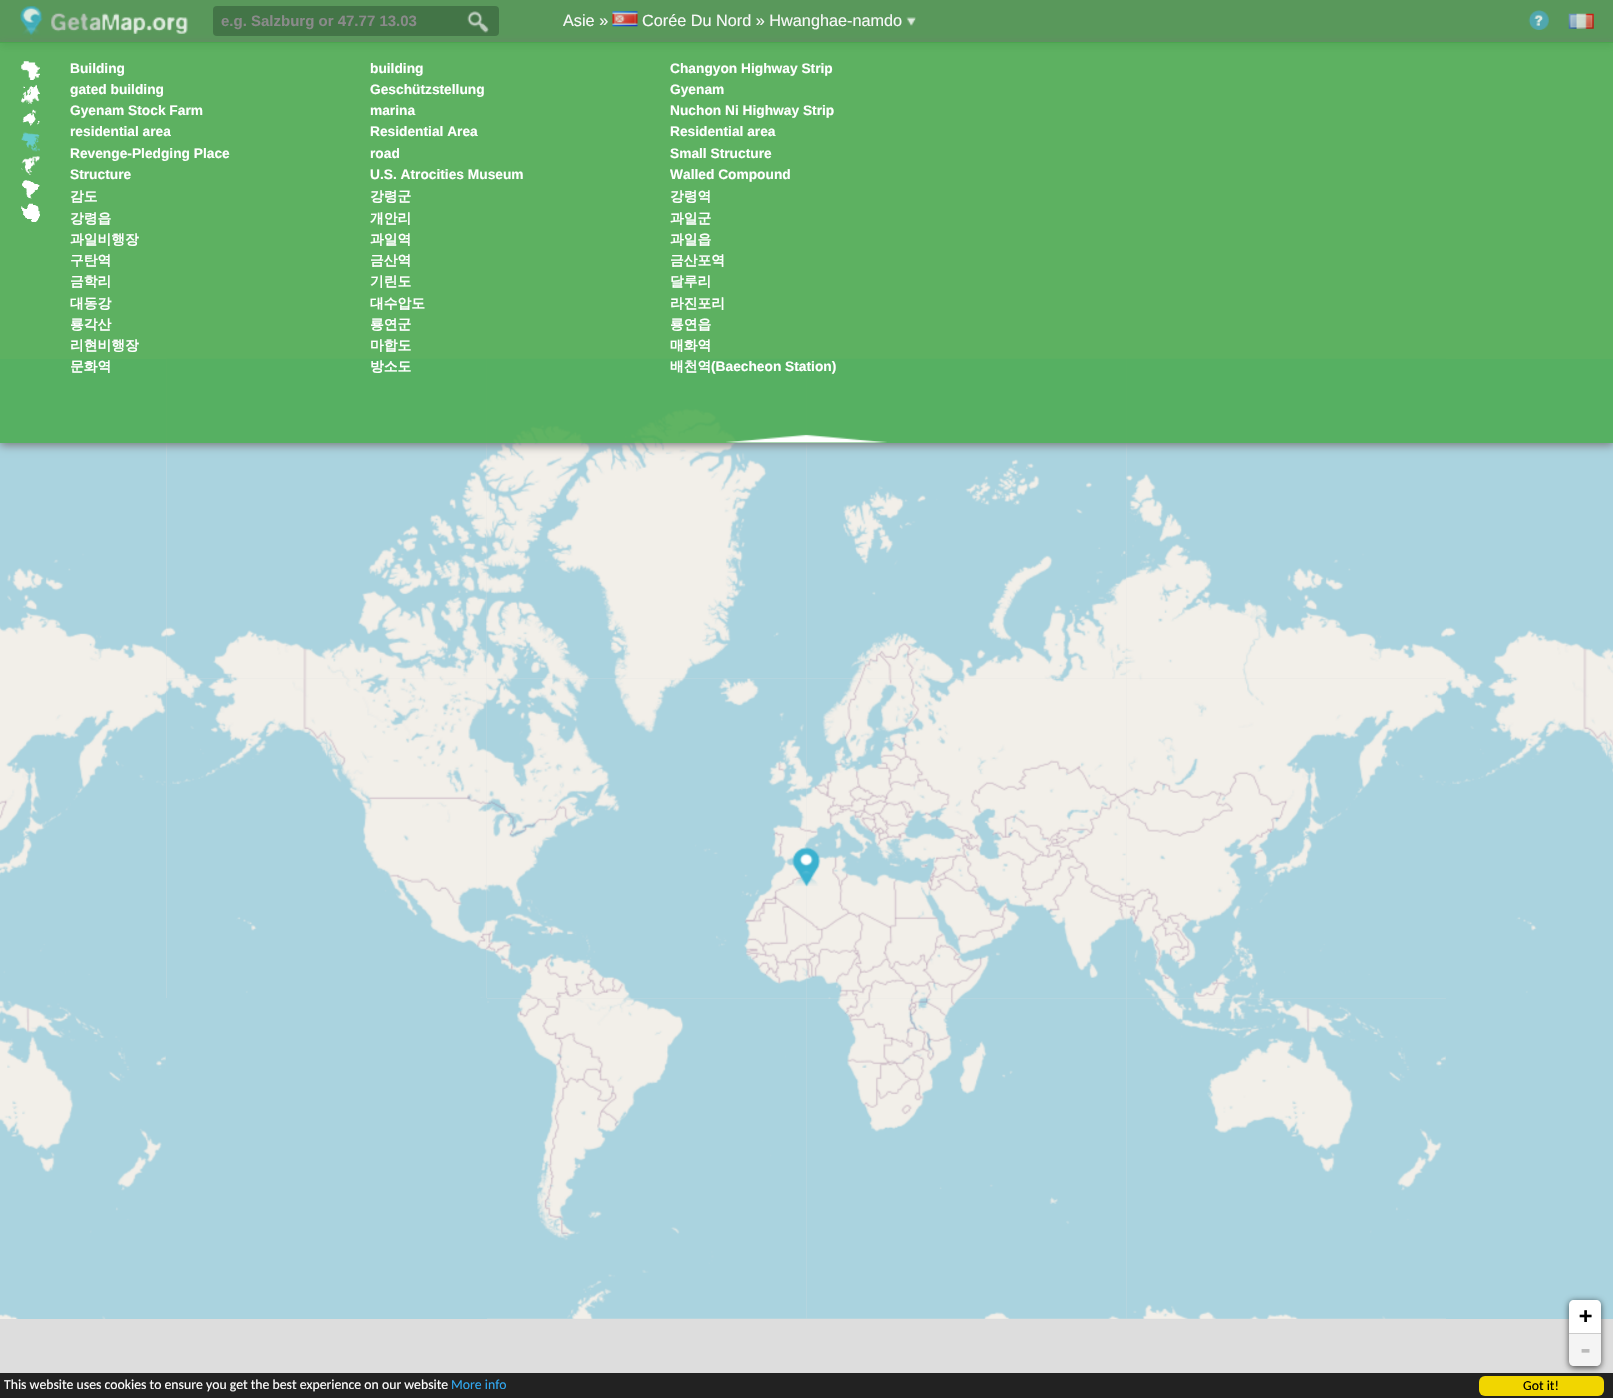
#include "include/core/SkBlurTypes.h"
#include "include/core/SkCanvas.h"
#include "include/core/SkData.h"
#include "include/core/SkFont.h"
#include "include/core/SkFontMgr.h"
#include "include/core/SkImage.h"
#include "include/core/SkMaskFilter.h"
#include "include/core/SkPaint.h"
#include "include/core/SkPathBuilder.h"
#include "include/core/SkTextBlob.h"
#include "include/effects/SkDashPathEffect.h"
#include "include/effects/SkGradientShader.h"
#include "include/utils/SkParsePath.h"

extern sk_sp<SkFontMgr> fontMgr;

void draw(SkCanvas* canvas) {
  SkPaint p;
  p.setAntiAlias(true);
  canvas->clear(SkColorSetRGB(221, 221, 221));
  p.setColor(SkColorSetRGB(139, 139, 139));
  p.setMaskFilter(SkMaskFilter::MakeBlur(kNormal_SkBlurStyle, 4.5f));
  canvas->drawRect(SkRect::MakeLTRB(0, 3, 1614, 45), p);
  p.setMaskFilter(nullptr);
  p.setColor(SkColorSetRGB(89, 152, 91));
  canvas->drawRect(SkRect::MakeLTRB(0, 0, 1613, 43), p);
  canvas->drawImageRect(SkImages::DeferredFromEncodedData(SkData::MakeFromFileName("images/1.png")), SkRect::MakeLTRB(20, 6, 188, 40), SkSamplingOptions());
  p.setColor(SkColorSetRGB(67, 117, 71));
  canvas->drawRoundRect(SkRect::MakeLTRB(213, 6, 499, 36), 4, 4, p);
  canvas->drawImageRect(SkImages::DeferredFromEncodedData(SkData::MakeFromFileName("images/2.png")), SkRect::MakeLTRB(467, 11, 489, 33), SkSamplingOptions());
  canvas->drawImageRect(SkImages::DeferredFromEncodedData(SkData::MakeFromFileName("images/3.png")), SkRect::MakeLTRB(612, 11, 638, 27), SkSamplingOptions());
  canvas->drawImageRect(SkImages::DeferredFromEncodedData(SkData::MakeFromFileName("images/4.png")), SkRect::MakeLTRB(906, 17, 916, 26), SkSamplingOptions());
  canvas->drawImageRect(SkImages::DeferredFromEncodedData(SkData::MakeFromFileName("images/5.png")), SkRect::MakeLTRB(1528, 10, 1549, 30), SkSamplingOptions());
  canvas->drawImageRect(SkImages::DeferredFromEncodedData(SkData::MakeFromFileName("images/6.png")), SkRect::MakeLTRB(1568, 13, 1594, 29), SkSamplingOptions());
  canvas->drawImageRect(SkImages::DeferredFromEncodedData(SkData::MakeFromFileName("images/15.png")), SkRect::MakeLTRB(0, 359, 166, 679), SkSamplingOptions());
  canvas->drawImageRect(SkImages::DeferredFromEncodedData(SkData::MakeFromFileName("images/17.png")), SkRect::MakeLTRB(486, 358, 807, 679), SkSamplingOptions());
  canvas->drawImageRect(SkImages::DeferredFromEncodedData(SkData::MakeFromFileName("images/18.png")), SkRect::MakeLTRB(806, 358, 1127, 679), SkSamplingOptions());
  canvas->drawImageRect(SkImages::DeferredFromEncodedData(SkData::MakeFromFileName("images/23.png")), SkRect::MakeLTRB(486, 678, 807, 999), SkSamplingOptions());
  canvas->drawImageRect(SkImages::DeferredFromEncodedData(SkData::MakeFromFileName("images/16.png")), SkRect::MakeLTRB(166, 358, 487, 679), SkSamplingOptions());
  canvas->drawImageRect(SkImages::DeferredFromEncodedData(SkData::MakeFromFileName("images/24.png")), SkRect::MakeLTRB(806, 678, 1127, 999), SkSamplingOptions());
  canvas->drawImageRect(SkImages::DeferredFromEncodedData(SkData::MakeFromFileName("images/19.png")), SkRect::MakeLTRB(1126, 358, 1447, 679), SkSamplingOptions());
  canvas->drawImageRect(SkImages::DeferredFromEncodedData(SkData::MakeFromFileName("images/20.png")), SkRect::MakeLTRB(1446, 359, 1613, 679), SkSamplingOptions());
  canvas->save();
  canvas->clipPath(SkPathBuilder(SkPathFillType::kEvenOdd).moveTo(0, 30).lineTo(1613, 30).lineTo(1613, 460).lineTo(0, 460).close().moveTo(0, 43).lineTo(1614, 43).lineTo(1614, 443).lineTo(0, 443).close().detach(), true);
  p.setColor(SkColorSetRGB(119, 119, 119));
  p.setMaskFilter(SkMaskFilter::MakeBlur(kNormal_SkBlurStyle, 4.5f));
  canvas->drawRect(SkRect::MakeLTRB(0, 45, 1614, 445), p);
  p.setMaskFilter(nullptr);
  canvas->restore();
  p.setColor(SkColorSetARGB(217, 71, 169, 75));
  canvas->drawRect(SkRect::MakeLTRB(0, 42, 1613, 443), p);
  canvas->drawImageRect(SkImages::DeferredFromEncodedData(SkData::MakeFromFileName("images/7.png")), SkRect::MakeLTRB(21, 61, 40, 80), SkSamplingOptions());
  canvas->drawImageRect(SkImages::DeferredFromEncodedData(SkData::MakeFromFileName("images/8.png")), SkRect::MakeLTRB(21, 85, 40, 104), SkSamplingOptions());
  canvas->drawImageRect(SkImages::DeferredFromEncodedData(SkData::MakeFromFileName("images/9.png")), SkRect::MakeLTRB(22, 109, 40, 126), SkSamplingOptions());
  canvas->drawImageRect(SkImages::DeferredFromEncodedData(SkData::MakeFromFileName("images/10.png")), SkRect::MakeLTRB(21, 132, 40, 152), SkSamplingOptions());
  canvas->drawImageRect(SkImages::DeferredFromEncodedData(SkData::MakeFromFileName("images/11.png")), SkRect::MakeLTRB(21, 156, 40, 175), SkSamplingOptions());
  canvas->drawImageRect(SkImages::DeferredFromEncodedData(SkData::MakeFromFileName("images/12.png")), SkRect::MakeLTRB(22, 180, 40, 199), SkSamplingOptions());
  canvas->drawImageRect(SkImages::DeferredFromEncodedData(SkData::MakeFromFileName("images/13.png")), SkRect::MakeLTRB(21, 203, 40, 222), SkSamplingOptions());
  canvas->drawImageRect(SkImages::DeferredFromEncodedData(SkData::MakeFromFileName("images/14.png")), SkRect::MakeLTRB(726, 434, 887, 443), SkSamplingOptions());
  canvas->drawImageRect(SkImages::DeferredFromEncodedData(SkData::MakeFromFileName("images/21.png")), SkRect::MakeLTRB(0, 679, 166, 999), SkSamplingOptions());
  canvas->drawImageRect(SkImages::DeferredFromEncodedData(SkData::MakeFromFileName("images/22.png")), SkRect::MakeLTRB(166, 678, 487, 998), SkSamplingOptions());
  canvas->drawImageRect(SkImages::DeferredFromEncodedData(SkData::MakeFromFileName("images/25.png")), SkRect::MakeLTRB(1126, 679, 1446, 999), SkSamplingOptions());
  canvas->drawImageRect(SkImages::DeferredFromEncodedData(SkData::MakeFromFileName("images/26.png")), SkRect::MakeLTRB(1446, 679, 1613, 999), SkSamplingOptions());
  canvas->drawImageRect(SkImages::DeferredFromEncodedData(SkData::MakeFromFileName("images/27.png")), SkRect::MakeLTRB(0, 999, 166, 1319), SkSamplingOptions());
  p.setColor(SkColorSetRGB(170, 211, 223));
  canvas->drawRect(SkRect::MakeLTRB(166, 998, 487, 1319), p);
  canvas->drawImageRect(SkImages::DeferredFromEncodedData(SkData::MakeFromFileName("images/28.png")), SkRect::MakeLTRB(487, 998, 807, 1319), SkSamplingOptions());
  canvas->drawImageRect(SkImages::DeferredFromEncodedData(SkData::MakeFromFileName("images/29.png")), SkRect::MakeLTRB(806, 998, 1127, 1319), SkSamplingOptions());
  canvas->drawImageRect(SkImages::DeferredFromEncodedData(SkData::MakeFromFileName("images/30.png")), SkRect::MakeLTRB(1126, 998, 1446, 1319), SkSamplingOptions());
  canvas->drawRect(SkRect::MakeLTRB(1446, 999, 1613, 1319), p);
  canvas->drawImageRect(SkImages::DeferredFromEncodedData(SkData::MakeFromFileName("images/31.png")), SkRect::MakeLTRB(792, 847, 821, 887), SkSamplingOptions());
  p.setColor(SkColorSetARGB(166, 0, 0, 0));
  p.setMaskFilter(SkMaskFilter::MakeBlur(kNormal_SkBlurStyle, 3));
  canvas->drawRoundRect(SkRect::MakeLTRB(1569, 1301, 1601, 1368), 5, 5, p);
  p.setMaskFilter(nullptr);
  p.setColor(SK_ColorWHITE);
  canvas->drawPath(SkPathBuilder().moveTo(1574, 1300).lineTo(1596, 1300).cubicTo(1599, 1300, 1601, 1302, 1601, 1305).lineTo(1601, 1334).lineTo(1569, 1334).lineTo(1569, 1305).cubicTo(1569, 1302, 1571, 1300, 1574, 1300).close().detach(), p);
  p.setColor(SkColorSetRGB(204, 204, 204));
  canvas->drawRect(SkRect::MakeLTRB(1569, 1333, 1601, 1334), p);
  p.setColor(SkColorSetRGB(244, 244, 244));
  canvas->drawPath(SkPathBuilder().moveTo(1569, 1334).lineTo(1601, 1334).lineTo(1601, 1361).cubicTo(1601, 1364, 1599, 1366, 1596, 1366).lineTo(1574, 1366).cubicTo(1571, 1366, 1569, 1364, 1569, 1361).close().detach(), p);
  p.setColor(SkColorSetRGB(34, 34, 34));
  canvas->drawRect(SkRect::MakeLTRB(0, 1373, 1613, 1398), p);
  p.setColor(SkColorSetRGB(241, 214, 0));
  canvas->drawRoundRect(SkRect::MakeLTRB(1479, 1376, 1604, 1396), 6, 6, p);
  SkFont font1(fontMgr->matchFamilyStyle("Liberation Sans", SkFontStyle::Bold()), 15);
  font1.setSubpixel(true);
  p.setColor(SkColorSetRGB(138, 138, 138));
  canvas->drawString("e.g. Salzburg or 47.77 13.03", 221, 26, font1, p);
  SkFont font2(fontMgr->matchFamilyStyle("Liberation Sans", SkFontStyle::Normal()), 16.25f);
  font2.setSubpixel(true);
  p.setColor(SkColorSetRGB(248, 248, 248));
  canvas->drawString("Asie »", 563, 26, font2, p);
  canvas->drawString("Corée Du Nord » Hwanghae-namdo", 642, 26, font2, p);
  SkFont font3(fontMgr->matchFamilyStyle("Liberation Sans", SkFontStyle::Bold()), 13.75f);
  font3.setSubpixel(true);
  p.setColor(SK_ColorWHITE);
  canvas->drawString("Building", 70, 73, font3, p);
  canvas->drawString("building", 370, 73, font3, p);
  canvas->drawString("Changyon Highway Strip", 670, 73, font3, p);
  canvas->drawString("gated building", 70, 94, font3, p);
  canvas->drawString("Geschützstellung", 370, 94, font3, p);
  canvas->drawString("Gyenam", 670, 94, font3, p);
  canvas->drawString("Gyenam Stock Farm", 70, 115, font3, p);
  canvas->drawString("marina", 370, 115, font3, p);
  canvas->drawString("Nuchon Ni Highway Strip", 670, 115, font3, p);
  canvas->drawString("residential area", 70, 136, font3, p);
  canvas->drawString("Residential Area", 370, 136, font3, p);
  canvas->drawString("Residential area", 670, 136, font3, p);
  canvas->drawString("Revenge-Pledging Place", 70, 158, font3, p);
  canvas->drawString("road", 370, 158, font3, p);
  canvas->drawString("Small Structure", 670, 158, font3, p);
  canvas->drawString("Structure", 70, 179, font3, p);
  canvas->drawString("U.S. Atrocities Museum", 370, 179, font3, p);
  canvas->drawString("Walled Compound", 670, 179, font3, p);
  SkFont font4(fontMgr->matchFamilyStyle("WenQuanYi Zen Hei", SkFontStyle::Bold()), 13.75f);
  font4.setSubpixel(true);
  canvas->drawString("감도", 70, 201, font4, p);
  canvas->drawString("강령군", 370, 201, font4, p);
  canvas->drawString("강령역", 670, 201, font4, p);
  canvas->drawString("강령읍", 70, 223, font4, p);
  canvas->drawString("개안리", 370, 223, font4, p);
  canvas->drawString("과일군", 670, 223, font4, p);
  canvas->drawString("과일비행장", 70, 244, font4, p);
  canvas->drawString("과일역", 370, 244, font4, p);
  canvas->drawString("과일읍", 670, 244, font4, p);
  canvas->drawString("구탄역", 70, 265, font4, p);
  canvas->drawString("금산역", 370, 265, font4, p);
  canvas->drawString("금산포역", 670, 265, font4, p);
  canvas->drawString("금학리", 70, 286, font4, p);
  canvas->drawString("기린도", 370, 286, font4, p);
  canvas->drawString("달루리", 670, 286, font4, p);
  canvas->drawString("대동강", 70, 308, font4, p);
  canvas->drawString("대수압도", 370, 308, font4, p);
  canvas->drawString("라진포리", 670, 308, font4, p);
  canvas->drawString("룡각산", 70, 329, font4, p);
  canvas->drawString("룡연군", 370, 329, font4, p);
  canvas->drawString("룡연읍", 670, 329, font4, p);
  canvas->drawString("리현비행장", 70, 350, font4, p);
  canvas->drawString("마합도", 370, 350, font4, p);
  canvas->drawString("매화역", 670, 350, font4, p);
  canvas->drawString("문화역", 70, 371, font4, p);
  canvas->drawString("방소도", 370, 371, font4, p);
  canvas->drawString("배천역", 670, 371, font4, p);
  canvas->drawString("(Baecheon Station)", 711, 371, font3, p);
  SkFont font5(fontMgr->matchFamilyStyle("DejaVu Sans Mono", SkFontStyle::Bold()), 22);
  font5.setSubpixel(true);
  p.setColor(SK_ColorBLACK);
  canvas->drawString("+", 1579, 1323, font5, p);
  SkFont font6(fontMgr->matchFamilyStyle("DejaVu Sans Mono", SkFontStyle::Bold()), 25);
  font6.setSubpixel(true);
  p.setColor(SkColorSetRGB(187, 187, 187));
  canvas->drawString("-", 1578, 1358, font6, p);
  SkFont font7(fontMgr->matchFamilyStyle("Carlito", SkFontStyle::Normal()), 13.75f);
  font7.setSubpixel(true);
  p.setColor(SK_ColorWHITE);
  canvas->drawString("This website uses cookies to ensure you get the best experience on our website", 4, 1389, font7, p);
  p.setColor(SkColorSetRGB(49, 168, 240));
  canvas->drawString("More info", 451, 1389, font7, p);
  p.setColor(SK_ColorBLACK);
  canvas->drawString("Got it!", 1523, 1390, font7, p);
}
